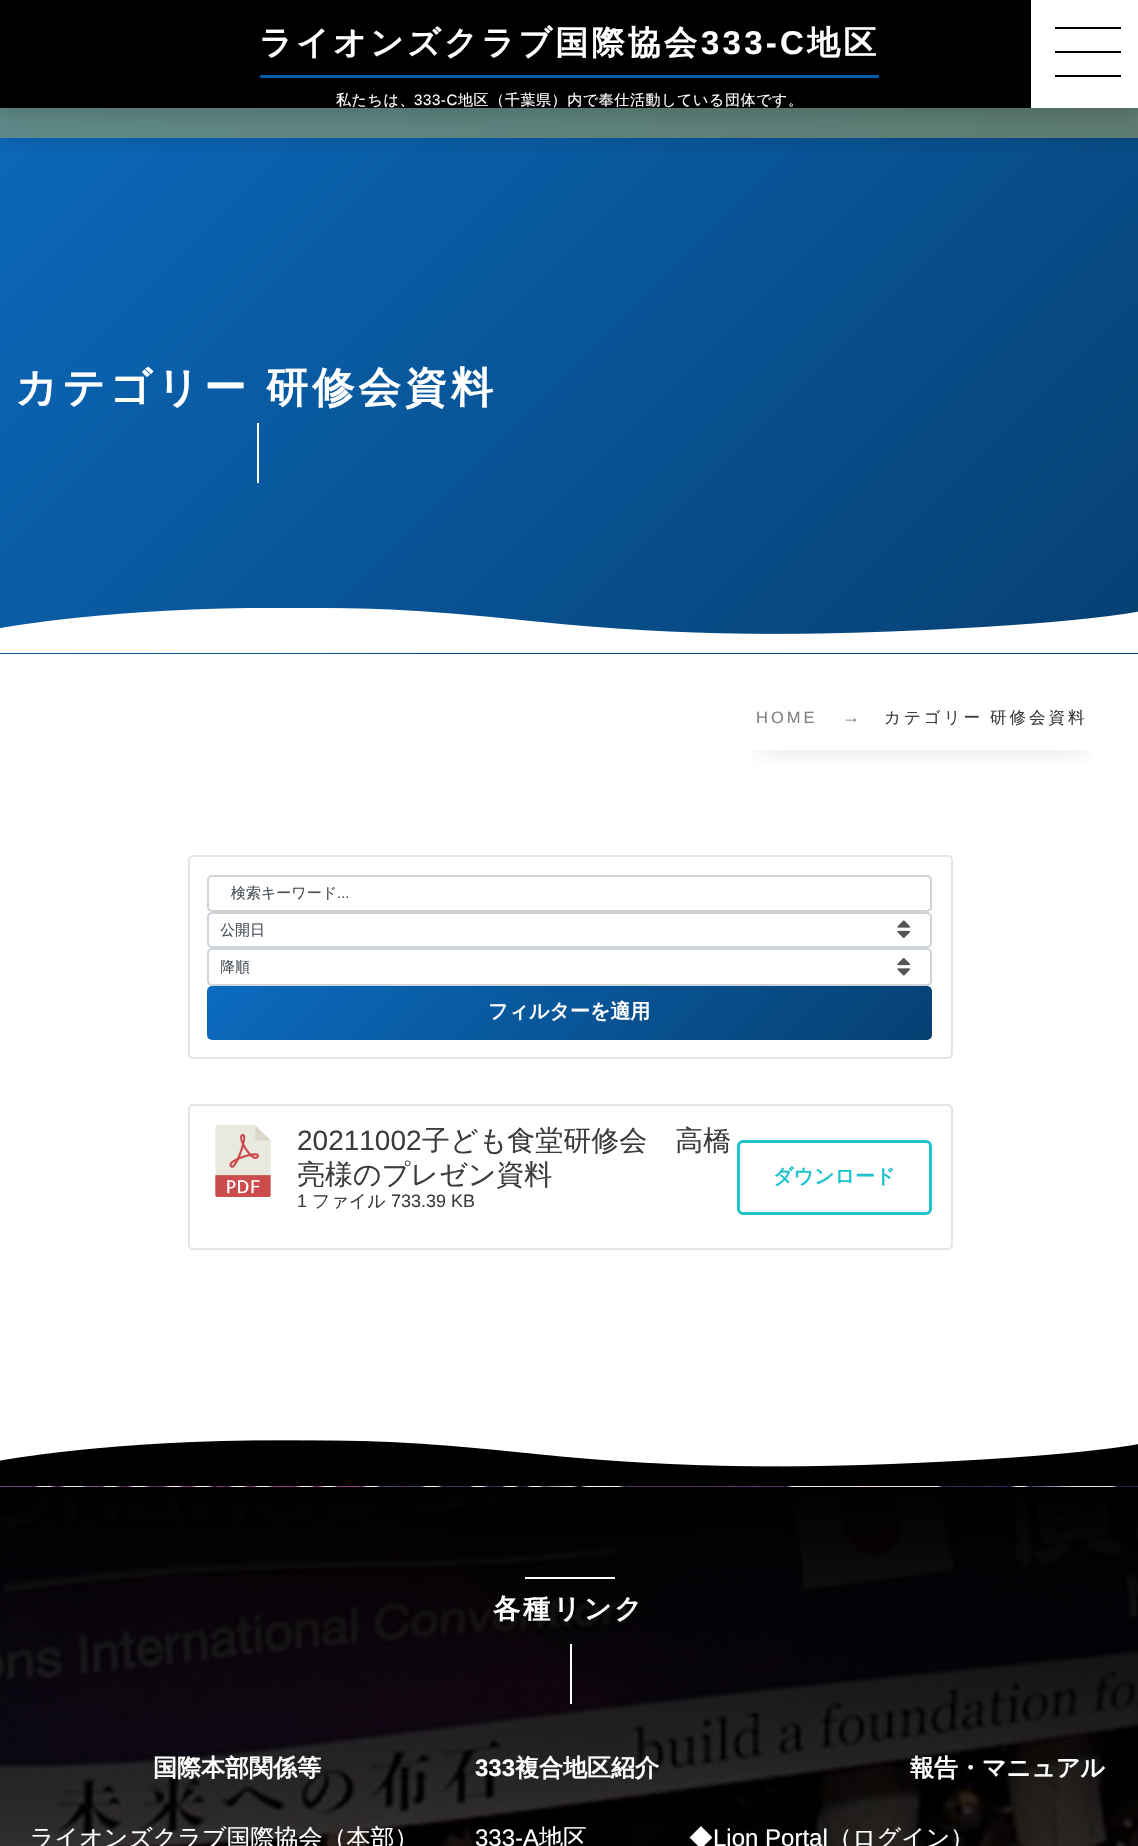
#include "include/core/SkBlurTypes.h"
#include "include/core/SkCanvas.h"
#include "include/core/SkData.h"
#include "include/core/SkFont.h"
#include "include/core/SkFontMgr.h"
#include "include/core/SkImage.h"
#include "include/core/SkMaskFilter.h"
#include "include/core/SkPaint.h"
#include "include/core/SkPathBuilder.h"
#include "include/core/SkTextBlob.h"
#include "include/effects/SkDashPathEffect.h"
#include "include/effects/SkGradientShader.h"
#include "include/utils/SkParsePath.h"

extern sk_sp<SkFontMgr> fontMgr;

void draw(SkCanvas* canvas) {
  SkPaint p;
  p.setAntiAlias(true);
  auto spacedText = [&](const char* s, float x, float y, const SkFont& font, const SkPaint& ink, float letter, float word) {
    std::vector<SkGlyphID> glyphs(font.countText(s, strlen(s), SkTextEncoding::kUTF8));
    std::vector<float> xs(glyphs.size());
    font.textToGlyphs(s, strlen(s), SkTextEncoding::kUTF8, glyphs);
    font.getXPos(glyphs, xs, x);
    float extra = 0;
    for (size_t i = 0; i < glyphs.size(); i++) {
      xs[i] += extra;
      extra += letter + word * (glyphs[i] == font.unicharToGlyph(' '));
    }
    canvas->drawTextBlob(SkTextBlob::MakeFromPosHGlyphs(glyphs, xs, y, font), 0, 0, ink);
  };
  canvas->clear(SK_ColorWHITE);
  {
    const SkColor colors[] = {SkColorSetRGB(11, 107, 191), SkColorSetRGB(6, 64, 114)};
    const float stops[] = {0, 1};
    const SkPoint ends[] = {{121, -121}, {1017, 775}};
    p.setShader(SkGradientShader::MakeLinear(ends, colors, stops, 2, SkTileMode::kClamp));
    p.setAlpha(255);
  }
  canvas->drawRect(SkRect::MakeLTRB(0, 138, 1138, 654), p);
  {
    const SkColor colors[] = {SkColorSetRGB(95, 140, 140), SkColorSetRGB(93, 118, 102)};
    const float stops[] = {0, 1};
    const SkPoint ends[] = {{121, -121}, {1017, 775}};
    p.setShader(SkGradientShader::MakeLinear(ends, colors, stops, 2, SkTileMode::kClamp));
    p.setAlpha(255);
  }
  canvas->drawRect(SkRect::MakeLTRB(0, 108, 1138, 138), p);
  canvas->save();
  canvas->clipRect(SkRect::MakeLTRB(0, 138, 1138, 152));
  p.setShader(nullptr);
  p.setColor(SkColorSetARGB(18, 0, 0, 0));
  p.setMaskFilter(SkMaskFilter::MakeBlur(kNormal_SkBlurStyle, 9));
  canvas->drawRect(SkRect::MakeLTRB(0, 9, 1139, 147), p);
  p.setMaskFilter(nullptr);
  canvas->restore();
  p.setColor(SkColorSetARGB(36, 0, 0, 0));
  p.setMaskFilter(SkMaskFilter::MakeBlur(kNormal_SkBlurStyle, 9));
  canvas->drawRect(SkRect::MakeLTRB(0, 9, 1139, 117), p);
  p.setMaskFilter(nullptr);
  p.setColor(SK_ColorBLACK);
  canvas->drawRect(SkRect::MakeLTRB(0, 0, 1031, 108), p);
  p.setColor(SkColorSetRGB(0, 93, 171));
  canvas->drawRect(SkRect::MakeLTRB(260, 75, 879, 78), p);
  p.setColor(SK_ColorWHITE);
  canvas->drawRect(SkRect::MakeLTRB(1031, 0, 1138, 108), p);
  p.setColor(SK_ColorBLACK);
  canvas->drawRect(SkRect::MakeLTRB(1055, 27, 1121, 29), p);
  canvas->drawRect(SkRect::MakeLTRB(1055, 51, 1121, 53), p);
  canvas->drawRect(SkRect::MakeLTRB(1055, 75, 1121, 77), p);
  p.setColor(SK_ColorWHITE);
  canvas->drawRect(SkRect::MakeLTRB(257, 423, 259, 483), p);
  canvas->drawImageRect(SkImages::DeferredFromEncodedData(SkData::MakeFromFileName("images/1.png")), SkRect::MakeLTRB(0, 608, 1138, 653), SkSamplingOptions());
  canvas->save();
  canvas->clipRect(SkRect::MakeLTRB(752, 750, 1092, 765));
  p.setColor(SkColorSetARGB(122, 60, 60, 60));
  p.setMaskFilter(SkMaskFilter::MakeBlur(kNormal_SkBlurStyle, 16.5f));
  canvas->drawRect(SkRect::MakeLTRB(762, 726, 1082, 738), p);
  p.setMaskFilter(nullptr);
  canvas->restore();
  p.setStyle(SkPaint::kStroke_Style);
  p.setStrokeWidth(2);
  p.setColor(SkColorSetRGB(229, 229, 229));
  canvas->drawRoundRect(SkRect::MakeLTRB(189, 856, 952, 1058), 4, 4, p);
  p.setColor(SkColorSetRGB(206, 212, 218));
  canvas->drawRoundRect(SkRect::MakeLTRB(208, 876, 931, 911), 4, 4, p);
  canvas->drawImageRect(SkImages::DeferredFromEncodedData(SkData::MakeFromFileName("images/2.png")), SkRect::MakeLTRB(897, 920, 911, 938), SkSamplingOptions());
  canvas->drawRoundRect(SkRect::MakeLTRB(208, 913, 931, 947), 4, 4, p);
  canvas->drawImageRect(SkImages::DeferredFromEncodedData(SkData::MakeFromFileName("images/3.png")), SkRect::MakeLTRB(897, 958, 911, 976), SkSamplingOptions());
  canvas->drawRoundRect(SkRect::MakeLTRB(208, 949, 931, 985), 4, 4, p);
  p.setStyle(SkPaint::kFill_Style);
  {
    const SkColor colors[] = {SkColorSetRGB(11, 107, 191), SkColorSetRGB(6, 64, 114)};
    const float stops[] = {0, 1};
    const SkPoint ends[] = {{375, 818}, {764, 1207}};
    p.setShader(SkGradientShader::MakeLinear(ends, colors, stops, 2, SkTileMode::kClamp));
    p.setAlpha(255);
  }
  canvas->drawRoundRect(SkRect::MakeLTRB(207, 986, 932, 1040), 5, 5, p);
  p.setStyle(SkPaint::kStroke_Style);
  p.setShader(nullptr);
  p.setColor(SkColorSetRGB(229, 229, 229));
  canvas->drawRoundRect(SkRect::MakeLTRB(189, 1105, 952, 1249), 4, 4, p);
  canvas->drawImageRect(SkImages::DeferredFromEncodedData(SkData::MakeFromFileName("images/4.png")), SkRect::MakeLTRB(215, 1125, 271, 1197), SkSamplingOptions());
  p.setStrokeWidth(3);
  p.setColor(SkColorSetRGB(30, 195, 206));
  canvas->drawRoundRect(SkRect::MakeLTRB(738.5f, 1141.5f, 930.5f, 1213.5f), 4.5f, 4.5f, p);
  canvas->drawImageRect(SkImages::DeferredFromEncodedData(SkData::MakeFromFileName("images/5.png")), SkRect::MakeLTRB(0, 1440, 1138, 1486), SkSamplingOptions());
  canvas->drawImageRect(SkImages::DeferredFromEncodedData(SkData::MakeFromFileName("images/6.png")), SkRect::MakeLTRB(0, 1486, 1138, 1846), SkSamplingOptions());
  p.setStyle(SkPaint::kFill_Style);
  p.setColor(SK_ColorWHITE);
  canvas->drawRect(SkRect::MakeLTRB(525, 1577, 615, 1579), p);
  canvas->drawRect(SkRect::MakeLTRB(570, 1644, 572, 1704), p);
  SkFont font1(fontMgr->matchFamilyStyle("WenQuanYi Zen Hei", SkFontStyle::Bold()), 33);
  font1.setSubpixel(true);
  spacedText("ライオンズクラブ国際協会", 259, 54, font1, p, 3.25f, 0);
  SkFont font2(fontMgr->matchFamilyStyle("Liberation Sans", SkFontStyle::Bold()), 33);
  font2.setSubpixel(true);
  spacedText("333-C", 701, 54, font2, p, 3.25f, 0);
  spacedText("地区", 807, 54, font1, p, 3.25f, 0);
  SkFont font3(fontMgr->matchFamilyStyle("WenQuanYi Zen Hei", SkFontStyle(500, SkFontStyle::kNormal_Width, SkFontStyle::kUpright_Slant)), 15);
  font3.setSubpixel(true);
  spacedText("私たちは、", 336, 105, font3, p, 0.6f, 0);
  SkFont font4(fontMgr->matchFamilyStyle("Liberation Sans", SkFontStyle::Normal()), 15);
  font4.setSubpixel(true);
  spacedText("333-C", 414, 105, font4, p, 0.6f, 0);
  spacedText("地区（千葉県）内で奉仕活動している団体です。", 458, 105, font3, p, 0.6f, 0);
  SkFont font5(fontMgr->matchFamilyStyle("WenQuanYi Zen Hei", SkFontStyle::Bold()), 42);
  font5.setSubpixel(true);
  spacedText("カテゴリー", 15, 402, font5, p, 4.25f, 0);
  spacedText("研修会資料", 266, 402, font5, p, 4.25f, 0);
  SkFont font6(fontMgr->matchFamilyStyle("Liberation Sans", SkFontStyle::Normal()), 16.5f);
  font6.setSubpixel(true);
  p.setColor(SkColorSetRGB(130, 130, 130));
  spacedText("HOME", 756, 723, font6, p, 3, 0);
  SkFont font7(fontMgr->matchFamilyStyle("Liberation Sans", SkFontStyle::Normal()), 18);
  font7.setSubpixel(true);
  canvas->drawString("→", 842, 723, font7, p);
  SkFont font8(fontMgr->matchFamilyStyle("WenQuanYi Zen Hei", SkFontStyle(500, SkFontStyle::kNormal_Width, SkFontStyle::kUpright_Slant)), 16.5f);
  font8.setSubpixel(true);
  p.setColor(SkColorSetRGB(60, 60, 60));
  spacedText("カテゴリー", 884, 723, font8, p, 3, 0);
  spacedText("研修会資料", 990, 723, font8, p, 3, 0);
  p.setColor(SkColorSetRGB(73, 80, 87));
  canvas->drawString("検索キーワード", 231, 898, font3, p);
  canvas->drawString("...", 337, 898, font4, p);
  canvas->save();
  canvas->clipRect(SkRect::MakeLTRB(221, 918, 915, 941));
  canvas->drawString("公開日", 220, 935, font3, p);
  canvas->restore();
  canvas->save();
  canvas->clipRect(SkRect::MakeLTRB(221, 956, 915, 978));
  canvas->drawString("降順", 220, 972, font3, p);
  canvas->restore();
  SkFont font9(fontMgr->matchFamilyStyle("WenQuanYi Zen Hei", SkFontStyle::Bold()), 20);
  font9.setSubpixel(true);
  p.setColor(SK_ColorWHITE);
  canvas->drawString("フィルターを適用", 488, 1018, font9, p);
  SkFont font10(fontMgr->matchFamilyStyle("Liberation Sans", SkFontStyle::Normal()), 28);
  font10.setSubpixel(true);
  p.setColor(SkColorSetRGB(60, 60, 60));
  canvas->drawString("20211002", 297, 1150, font10, p);
  SkFont font11(fontMgr->matchFamilyStyle("WenQuanYi Zen Hei", SkFontStyle(500, SkFontStyle::kNormal_Width, SkFontStyle::kUpright_Slant)), 28);
  font11.setSubpixel(true);
  canvas->drawString("子ども食堂研修会　高橋", 422, 1150, font11, p);
  canvas->drawString("亮様のプレゼン資料", 297, 1184, font11, p);
  canvas->drawString("1", 297, 1207, font7, p);
  SkFont font12(fontMgr->matchFamilyStyle("WenQuanYi Zen Hei", SkFontStyle(500, SkFontStyle::kNormal_Width, SkFontStyle::kUpright_Slant)), 18);
  font12.setSubpixel(true);
  canvas->drawString("ファイル", 312, 1207, font12, p);
  canvas->drawString("733.39 KB", 391, 1207, font7, p);
  p.setColor(SkColorSetRGB(30, 195, 206));
  canvas->drawString("ダウンロード", 773, 1183, font9, p);
  SkFont font13(fontMgr->matchFamilyStyle("WenQuanYi Zen Hei", SkFontStyle::Bold()), 27.25f);
  font13.setSubpixel(true);
  p.setColor(SK_ColorWHITE);
  spacedText("各種リンク", 493, 1618, font13, p, 2.75f, 0);
  SkFont font14(fontMgr->matchFamilyStyle("WenQuanYi Zen Hei", SkFontStyle::Bold()), 24);
  font14.setSubpixel(true);
  canvas->drawString("国際本部関係等", 153, 1776, font14, p);
  SkFont font15(fontMgr->matchFamilyStyle("Liberation Sans", SkFontStyle::Bold()), 24);
  font15.setSubpixel(true);
  canvas->drawString("333", 475, 1776, font15, p);
  canvas->drawString("複合地区紹介", 515, 1776, font14, p);
  canvas->drawString("報告・マニュアル", 910, 1776, font14, p);
  SkFont font16(fontMgr->matchFamilyStyle("WenQuanYi Zen Hei", SkFontStyle(500, SkFontStyle::kNormal_Width, SkFontStyle::kUpright_Slant)), 24);
  font16.setSubpixel(true);
  canvas->drawString("ライオンズクラブ国際協会（本部）", 30, 1846, font16, p);
  SkFont font17(fontMgr->matchFamilyStyle("Liberation Sans", SkFontStyle::Normal()), 24);
  font17.setSubpixel(true);
  canvas->drawString("333-A", 475, 1846, font17, p);
  canvas->drawString("地区", 539, 1846, font16, p);
  canvas->drawString("◆", 689, 1846, font16, p);
  canvas->drawString("Lion Portal", 713, 1846, font17, p);
  canvas->drawString("（ログイン）", 828, 1846, font16, p);
}
